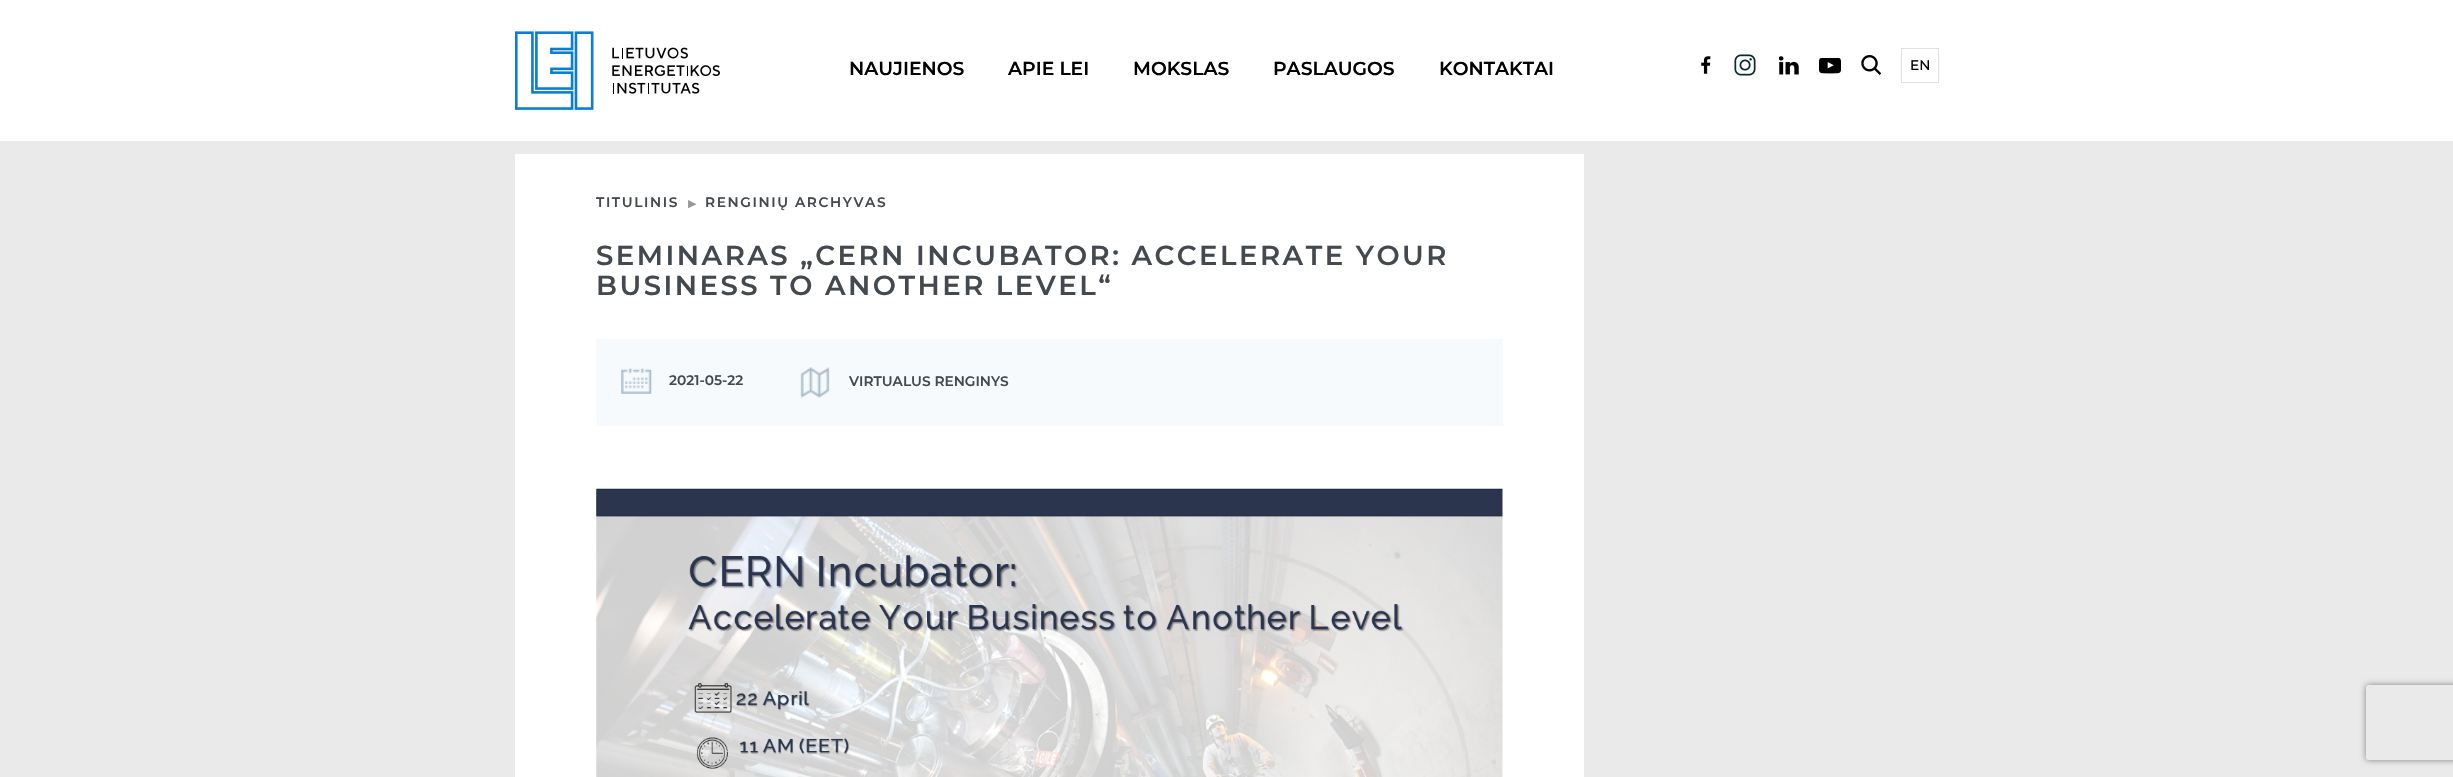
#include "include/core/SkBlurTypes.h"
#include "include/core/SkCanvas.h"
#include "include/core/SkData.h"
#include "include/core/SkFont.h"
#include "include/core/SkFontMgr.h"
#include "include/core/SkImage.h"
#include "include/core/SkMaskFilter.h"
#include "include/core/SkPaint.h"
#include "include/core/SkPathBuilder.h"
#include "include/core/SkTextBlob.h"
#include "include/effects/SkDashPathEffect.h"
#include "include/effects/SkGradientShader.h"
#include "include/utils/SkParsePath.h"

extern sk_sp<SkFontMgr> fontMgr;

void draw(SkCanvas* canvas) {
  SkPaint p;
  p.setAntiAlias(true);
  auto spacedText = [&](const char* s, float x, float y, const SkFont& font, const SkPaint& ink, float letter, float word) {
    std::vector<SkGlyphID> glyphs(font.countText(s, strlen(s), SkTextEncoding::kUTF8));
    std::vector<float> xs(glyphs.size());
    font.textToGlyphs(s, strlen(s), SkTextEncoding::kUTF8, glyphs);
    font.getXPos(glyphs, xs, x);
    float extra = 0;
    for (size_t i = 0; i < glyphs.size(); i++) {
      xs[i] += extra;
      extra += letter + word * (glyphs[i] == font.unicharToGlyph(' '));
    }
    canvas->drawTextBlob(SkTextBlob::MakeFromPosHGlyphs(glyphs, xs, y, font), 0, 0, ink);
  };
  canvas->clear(SkColorSetRGB(234, 234, 234));
  p.setColor(SK_ColorWHITE);
  canvas->drawRect(SkRect::MakeLTRB(0, 0, 2453, 141), p);
  canvas->drawImageRect(SkImages::DeferredFromEncodedData(SkData::MakeFromFileName("images/1.png")), SkRect::MakeLTRB(515, 31, 720, 110), SkSamplingOptions());
  canvas->drawImageRect(SkImages::DeferredFromEncodedData(SkData::MakeFromFileName("images/2.png")), SkRect::MakeLTRB(1701, 56, 1711, 74), SkSamplingOptions());
  canvas->drawImageRect(SkImages::DeferredFromEncodedData(SkData::MakeFromFileName("images/3.png")), SkRect::MakeLTRB(1734, 54, 1756, 76), SkSamplingOptions());
  canvas->drawImageRect(SkImages::DeferredFromEncodedData(SkData::MakeFromFileName("images/4.png")), SkRect::MakeLTRB(1779, 56, 1799, 75), SkSamplingOptions());
  canvas->drawImageRect(SkImages::DeferredFromEncodedData(SkData::MakeFromFileName("images/5.png")), SkRect::MakeLTRB(1819, 58, 1841, 74), SkSamplingOptions());
  canvas->drawImageRect(SkImages::DeferredFromEncodedData(SkData::MakeFromFileName("images/6.png")), SkRect::MakeLTRB(1861, 55, 1881, 75), SkSamplingOptions());
  p.setStyle(SkPaint::kStroke_Style);
  p.setStrokeWidth(1);
  p.setColor(SkColorSetRGB(224, 224, 224));
  canvas->drawRect(SkRect::MakeLTRB(1901.5f, 48.5f, 1938.5f, 82.5f), p);
  p.setStyle(SkPaint::kFill_Style);
  p.setColor(SK_ColorWHITE);
  canvas->drawRect(SkRect::MakeLTRB(515, 154, 1584, 777), p);
  p.setColor(SkColorSetRGB(246, 250, 253));
  canvas->drawRect(SkRect::MakeLTRB(596, 339, 1503, 426), p);
  canvas->drawImageRect(SkImages::DeferredFromEncodedData(SkData::MakeFromFileName("images/7.png")), SkRect::MakeLTRB(621, 368, 652, 394), SkSamplingOptions());
  canvas->drawImageRect(SkImages::DeferredFromEncodedData(SkData::MakeFromFileName("images/8.png")), SkRect::MakeLTRB(800, 367, 830, 398), SkSamplingOptions());
  canvas->drawImageRect(SkImages::DeferredFromEncodedData(SkData::MakeFromFileName("images/9.png")), SkRect::MakeLTRB(596, 488, 1503, 777), SkSamplingOptions());
  canvas->save();
  canvas->clipPath(SkPathBuilder(SkPathFillType::kEvenOdd).moveTo(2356, 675).lineTo(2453, 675).lineTo(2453, 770).lineTo(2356, 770).close().moveTo(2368.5f, 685).lineTo(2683.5f, 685).cubicTo(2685, 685, 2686, 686, 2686, 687.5f).lineTo(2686, 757.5f).cubicTo(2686, 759, 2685, 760, 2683.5f, 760).lineTo(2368.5f, 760).cubicTo(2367, 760, 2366, 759, 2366, 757.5f).lineTo(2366, 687.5f).cubicTo(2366, 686, 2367, 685, 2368.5f, 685).close().detach(), true);
  p.setColor(SkColorSetRGB(128, 128, 128));
  p.setMaskFilter(SkMaskFilter::MakeBlur(kNormal_SkBlurStyle, 3));
  canvas->drawRoundRect(SkRect::MakeLTRB(2366, 685, 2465, 760), 2.5f, 2.5f, p);
  p.setMaskFilter(nullptr);
  canvas->restore();
  SkFont font1(fontMgr->matchFamilyStyle("Montserrat", SkFontStyle(600, SkFontStyle::kNormal_Width, SkFontStyle::kUpright_Slant)), 18.75f);
  font1.setSubpixel(true);
  p.setColor(SK_ColorBLACK);
  canvas->drawString("NAUJIENOS", 849, 75, font1, p);
  canvas->drawString("APIE LEI", 1008, 75, font1, p);
  canvas->drawString("MOKSLAS", 1133, 75, font1, p);
  canvas->drawString("PASLAUGOS", 1273, 75, font1, p);
  canvas->drawString("KONTAKTAI", 1439, 75, font1, p);
  SkFont font2(fontMgr->matchFamilyStyle("Montserrat", SkFontStyle(500, SkFontStyle::kNormal_Width, SkFontStyle::kUpright_Slant)), 13.75f);
  font2.setSubpixel(true);
  canvas->drawString("EN", 1910, 70, font2, p);
  SkFont font3(fontMgr->matchFamilyStyle("Montserrat", SkFontStyle(600, SkFontStyle::kNormal_Width, SkFontStyle::kUpright_Slant)), 13.75f);
  font3.setSubpixel(true);
  p.setColor(SkColorSetRGB(67, 73, 78));
  spacedText("TITULINIS", 596, 207, font3, p, 1.6f, 0);
  SkFont font4(fontMgr->matchFamilyStyle("DejaVu Sans", SkFontStyle::Normal()), 11);
  font4.setSubpixel(true);
  p.setColor(SkColorSetRGB(153, 153, 153));
  canvas->drawString("▶", 688, 207, font4, p);
  p.setColor(SkColorSetRGB(67, 73, 78));
  spacedText("RENGINIŲ ARCHYVAS", 705, 207, font3, p, 1.6f, 0);
  SkFont font5(fontMgr->matchFamilyStyle("Montserrat", SkFontStyle(600, SkFontStyle::kNormal_Width, SkFontStyle::kUpright_Slant)), 27.5f);
  font5.setSubpixel(true);
  spacedText("SEMINARAS „CERN INCUBATOR: ACCELERATE YOUR", 596, 265, font5, p, 2.5f, 0);
  spacedText("BUSINESS TO ANOTHER LEVEL“", 596, 295, font5, p, 2.5f, 0);
  canvas->drawString("2021-05-22", 669, 385, font3, p);
  canvas->drawString("VIRTUALUS RENGINYS", 849, 386, font3, p);
}
